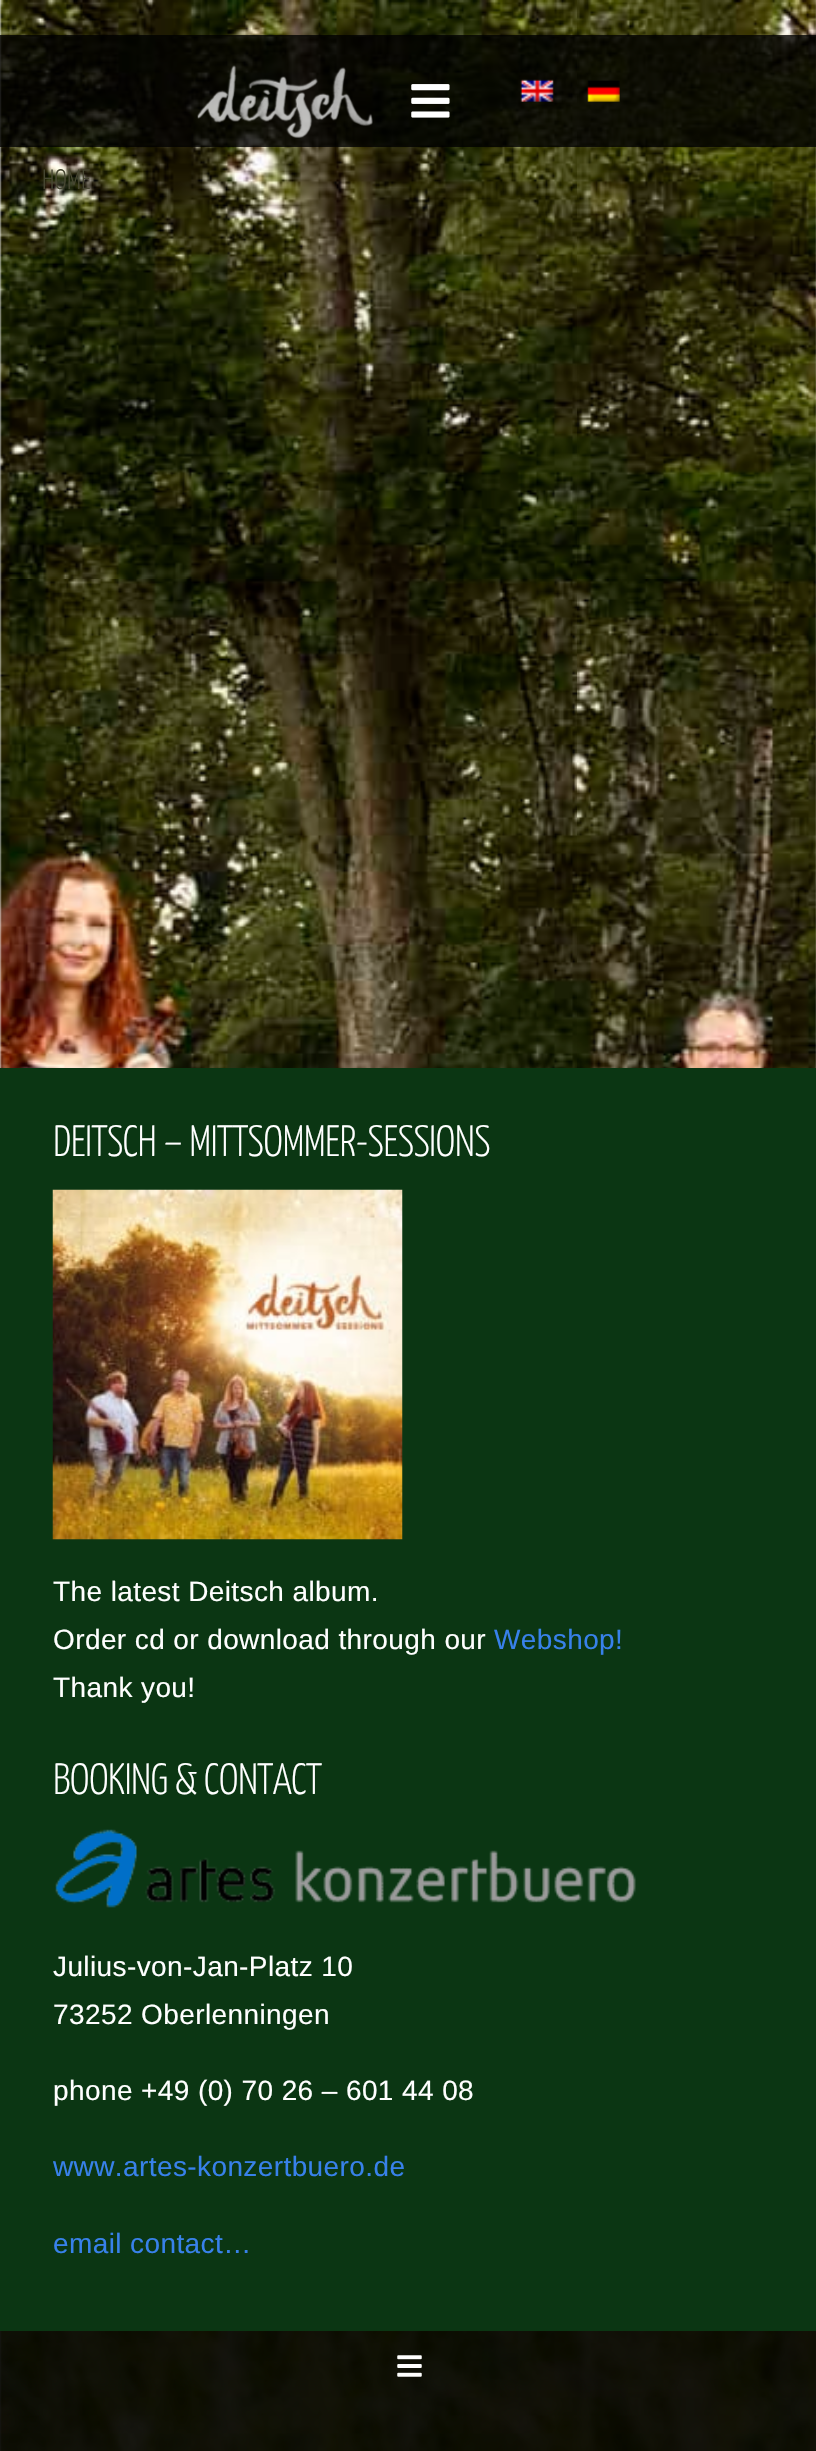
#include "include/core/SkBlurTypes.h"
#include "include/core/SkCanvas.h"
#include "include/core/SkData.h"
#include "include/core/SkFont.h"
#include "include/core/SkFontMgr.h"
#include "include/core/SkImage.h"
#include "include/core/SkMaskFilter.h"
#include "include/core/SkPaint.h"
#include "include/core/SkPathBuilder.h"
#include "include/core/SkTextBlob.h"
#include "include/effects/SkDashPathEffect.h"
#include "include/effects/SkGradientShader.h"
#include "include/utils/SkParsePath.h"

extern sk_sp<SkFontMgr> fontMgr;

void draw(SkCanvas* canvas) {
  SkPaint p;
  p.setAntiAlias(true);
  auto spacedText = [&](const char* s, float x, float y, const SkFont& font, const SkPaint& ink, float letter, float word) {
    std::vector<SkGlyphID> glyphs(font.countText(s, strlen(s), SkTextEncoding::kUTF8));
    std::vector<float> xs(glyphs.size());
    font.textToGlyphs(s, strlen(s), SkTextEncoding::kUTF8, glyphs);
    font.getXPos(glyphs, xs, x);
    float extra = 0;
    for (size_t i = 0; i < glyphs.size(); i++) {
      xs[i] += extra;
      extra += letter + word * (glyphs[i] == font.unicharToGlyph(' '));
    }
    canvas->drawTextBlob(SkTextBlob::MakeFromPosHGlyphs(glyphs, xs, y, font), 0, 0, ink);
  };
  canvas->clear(SK_ColorWHITE);
  canvas->drawImageRect(SkImages::DeferredFromEncodedData(SkData::MakeFromFileName("images/1.png")), SkRect::MakeLTRB(0, 0, 816, 2451), SkSamplingOptions());
  p.setColor(SkColorSetARGB(204, 0, 0, 0));
  canvas->drawRect(SkRect::MakeLTRB(0, 35, 816, 147), p);
  canvas->drawImageRect(SkImages::DeferredFromEncodedData(SkData::MakeFromFileName("images/2.png")), SkRect::MakeLTRB(197, 65, 373, 138), SkSamplingOptions());
  canvas->drawImageRect(SkImages::DeferredFromEncodedData(SkData::MakeFromFileName("images/3.png")), SkRect::MakeLTRB(520, 79, 554, 102), SkSamplingOptions());
  canvas->drawImageRect(SkImages::DeferredFromEncodedData(SkData::MakeFromFileName("images/4.png")), SkRect::MakeLTRB(587, 80, 620, 102), SkSamplingOptions());
  canvas->drawImageRect(SkImages::DeferredFromEncodedData(SkData::MakeFromFileName("images/5.png")), SkRect::MakeLTRB(411, 84, 450, 118), SkSamplingOptions());
  p.setColor(SkColorSetRGB(11, 54, 19));
  canvas->drawRect(SkRect::MakeLTRB(0, 1068, 816, 2331), p);
  canvas->drawImageRect(SkImages::DeferredFromEncodedData(SkData::MakeFromFileName("images/6.png")), SkRect::MakeLTRB(52, 1189, 403, 1540), SkSamplingOptions());
  canvas->drawImageRect(SkImages::DeferredFromEncodedData(SkData::MakeFromFileName("images/7.png")), SkRect::MakeLTRB(55, 1829, 636, 1908), SkSamplingOptions());
  p.setColor(SkColorSetARGB(230, 0, 0, 0));
  canvas->drawRect(SkRect::MakeLTRB(0, 2331, 816, 2451), p);
  canvas->drawImageRect(SkImages::DeferredFromEncodedData(SkData::MakeFromFileName("images/8.png")), SkRect::MakeLTRB(397, 2355, 422, 2377), SkSamplingOptions());
  SkFont font1(fontMgr->matchFamilyStyle("Yanone Kaffeesatz", SkFontStyle(200, SkFontStyle::kNormal_Width, SkFontStyle::kUpright_Slant)), 28);
  font1.setSubpixel(true);
  p.setColor(SkColorSetRGB(71, 71, 50));
  canvas->drawString("HOME", 42, 189, font1, p);
  SkFont font2(fontMgr->matchFamilyStyle("Yanone Kaffeesatz", SkFontStyle(200, SkFontStyle::kNormal_Width, SkFontStyle::kUpright_Slant)), 43.75f);
  font2.setSubpixel(true);
  p.setColor(SK_ColorWHITE);
  spacedText("DEITSCH – MITTSOMMER-SESSIONS", 53, 1156, font2, p, -0.65f, 0);
  SkFont font3(fontMgr->matchFamilyStyle("Liberation Sans", SkFontStyle::Normal()), 28);
  font3.setSubpixel(true);
  spacedText("The latest Deitsch album.", 53, 1601, font3, p, 0.4f, 0);
  spacedText("Order cd or download through our", 53, 1649, font3, p, 0.4f, 0);
  p.setColor(SkColorSetRGB(56, 129, 234));
  spacedText("Webshop!", 494, 1649, font3, p, 0.4f, 0);
  p.setColor(SK_ColorWHITE);
  spacedText("Thank you!", 53, 1697, font3, p, 0.4f, 0);
  spacedText("BOOKING & CONTACT", 53, 1794, font2, p, -0.65f, 0);
  spacedText("Julius-von-Jan-Platz 10", 53, 1976, font3, p, 0.4f, 0);
  spacedText("73252 Oberlenningen", 53, 2024, font3, p, 0.4f, 0);
  spacedText("phone +49 (0) 70 26 – 601 44 08", 53, 2100, font3, p, 0.4f, 0);
  p.setColor(SkColorSetRGB(56, 129, 234));
  spacedText("www.artes-konzertbuero.de", 53, 2176, font3, p, 0.4f, 0);
  spacedText("email contact…", 53, 2253, font3, p, 0.4f, 0);
}
